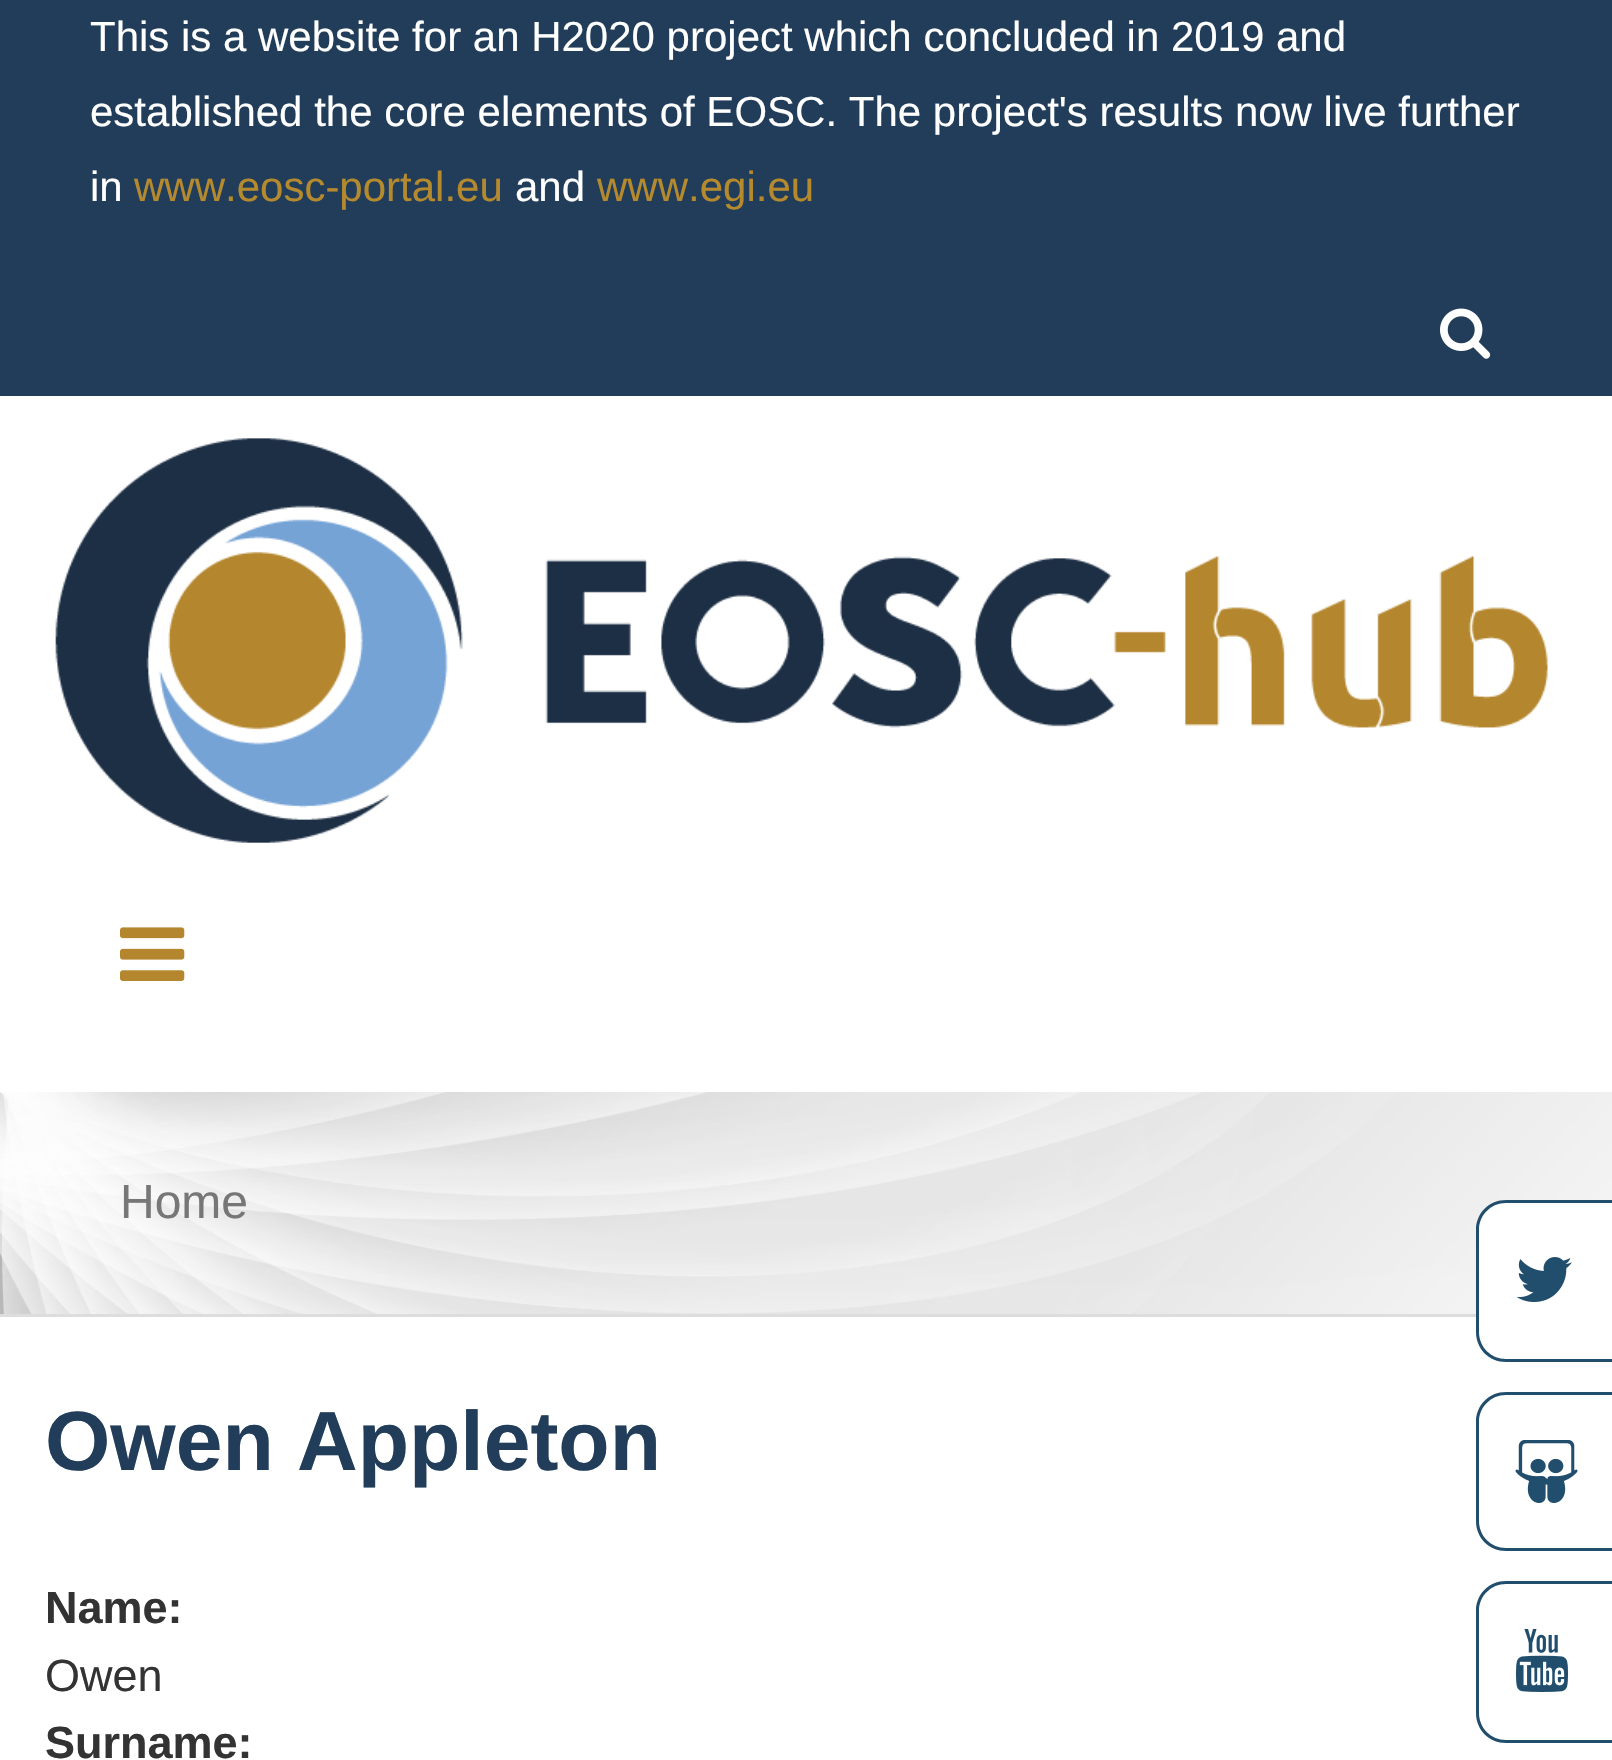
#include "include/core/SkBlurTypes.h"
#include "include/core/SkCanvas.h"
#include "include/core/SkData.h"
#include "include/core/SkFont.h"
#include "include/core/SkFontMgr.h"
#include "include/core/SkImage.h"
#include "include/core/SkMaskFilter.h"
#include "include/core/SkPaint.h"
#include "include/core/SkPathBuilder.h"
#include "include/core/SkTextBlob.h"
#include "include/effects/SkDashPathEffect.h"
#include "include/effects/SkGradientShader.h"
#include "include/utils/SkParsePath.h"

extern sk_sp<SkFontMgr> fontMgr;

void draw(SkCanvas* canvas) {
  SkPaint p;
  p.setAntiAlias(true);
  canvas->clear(SK_ColorWHITE);
  p.setColor(SkColorSetRGB(33, 61, 89));
  canvas->drawRect(SkRect::MakeLTRB(0, 0, 1612, 396), p);
  canvas->drawImageRect(SkImages::DeferredFromEncodedData(SkData::MakeFromFileName("images/1.png")), SkRect::MakeLTRB(1440, 308, 1491, 359), SkSamplingOptions());
  canvas->drawImageRect(SkImages::DeferredFromEncodedData(SkData::MakeFromFileName("images/2.png")), SkRect::MakeLTRB(55, 438, 1548, 843), SkSamplingOptions());
  canvas->drawImageRect(SkImages::DeferredFromEncodedData(SkData::MakeFromFileName("images/3.png")), SkRect::MakeLTRB(120, 927, 185, 981), SkSamplingOptions());
  canvas->drawImageRect(SkImages::DeferredFromEncodedData(SkData::MakeFromFileName("images/4.png")), SkRect::MakeLTRB(0, 1092, 1612, 1314), SkSamplingOptions());
  p.setColor(SkColorSetRGB(221, 221, 221));
  canvas->drawRect(SkRect::MakeLTRB(0, 1314, 1476, 1317), p);
  p.setColor(SK_ColorWHITE);
  canvas->drawPath(SkPathBuilder().moveTo(1506, 1200).lineTo(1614, 1200).lineTo(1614, 1362).lineTo(1506, 1362).cubicTo(1489.5f, 1362, 1476, 1348.5f, 1476, 1332).lineTo(1476, 1230).cubicTo(1476, 1213.5f, 1489.5f, 1200, 1506, 1200).close().detach(), p);
  p.setColor(SkColorSetRGB(34, 78, 110));
  canvas->drawPath(SkPathBuilder(SkPathFillType::kEvenOdd).moveTo(1506, 1200).lineTo(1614, 1200).lineTo(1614, 1362).lineTo(1506, 1362).cubicTo(1489, 1362, 1476, 1349, 1476, 1332).lineTo(1476, 1230).cubicTo(1476, 1213, 1489, 1200, 1506, 1200).close().moveTo(1506, 1203).lineTo(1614, 1203).lineTo(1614, 1359).lineTo(1506, 1359).cubicTo(1491, 1359, 1479, 1347, 1479, 1332).lineTo(1479, 1230).cubicTo(1479, 1215, 1491, 1203, 1506, 1203).close().detach(), p);
  canvas->drawImageRect(SkImages::DeferredFromEncodedData(SkData::MakeFromFileName("images/5.png")), SkRect::MakeLTRB(1516, 1257, 1572, 1302), SkSamplingOptions());
  canvas->drawPath(SkPathBuilder(SkPathFillType::kEvenOdd).moveTo(1506, 1392).lineTo(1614, 1392).lineTo(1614, 1551).lineTo(1506, 1551).cubicTo(1489, 1551, 1476, 1538, 1476, 1521).lineTo(1476, 1422).cubicTo(1476, 1405, 1489, 1392, 1506, 1392).close().moveTo(1506, 1395).lineTo(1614, 1395).lineTo(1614, 1548).lineTo(1506, 1548).cubicTo(1491, 1548, 1479, 1536, 1479, 1521).lineTo(1479, 1422).cubicTo(1479, 1407, 1491, 1395, 1506, 1395).close().detach(), p);
  canvas->drawImageRect(SkImages::DeferredFromEncodedData(SkData::MakeFromFileName("images/6.png")), SkRect::MakeLTRB(1515, 1440, 1578, 1503), SkSamplingOptions());
  canvas->drawPath(SkPathBuilder(SkPathFillType::kEvenOdd).moveTo(1506, 1581).lineTo(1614, 1581).lineTo(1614, 1743).lineTo(1506, 1743).cubicTo(1489, 1743, 1476, 1730, 1476, 1713).lineTo(1476, 1611).cubicTo(1476, 1594, 1489, 1581, 1506, 1581).close().moveTo(1506, 1584).lineTo(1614, 1584).lineTo(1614, 1740).lineTo(1506, 1740).cubicTo(1491, 1740, 1479, 1728, 1479, 1713).lineTo(1479, 1611).cubicTo(1479, 1596, 1491, 1584, 1506, 1584).close().detach(), p);
  canvas->drawImageRect(SkImages::DeferredFromEncodedData(SkData::MakeFromFileName("images/7.png")), SkRect::MakeLTRB(1515, 1629, 1569, 1692), SkSamplingOptions());
  SkFont font1(fontMgr->matchFamilyStyle("Liberation Sans", SkFontStyle::Normal()), 42);
  font1.setSubpixel(true);
  p.setColor(SK_ColorWHITE);
  canvas->drawString("This is a website for an H2020 project which concluded in 2019 and", 90, 51, font1, p);
  canvas->drawString("established the core elements of EOSC. The project's results now live further", 90, 126, font1, p);
  canvas->drawString("in", 90, 201, font1, p);
  p.setColor(SkColorSetRGB(181, 138, 46));
  canvas->drawString("www.eosc-portal.eu", 134, 201, font1, p);
  p.setColor(SK_ColorWHITE);
  canvas->drawString("and", 515, 201, font1, p);
  p.setColor(SkColorSetRGB(181, 138, 46));
  canvas->drawString("www.egi.eu", 597, 201, font1, p);
  SkFont font2(fontMgr->matchFamilyStyle("Liberation Sans", SkFontStyle::Normal()), 48);
  font2.setSubpixel(true);
  p.setColor(SkColorSetRGB(119, 119, 119));
  canvas->drawString("Home", 120, 1218, font2, p);
  SkFont font3(fontMgr->matchFamilyStyle("Liberation Sans", SkFontStyle::Bold()), 84);
  font3.setSubpixel(true);
  p.setColor(SkColorSetRGB(33, 61, 89));
  canvas->drawString("Owen Appleton", 45, 1470, font3, p);
  SkFont font4(fontMgr->matchFamilyStyle("Liberation Sans", SkFontStyle::Bold()), 45);
  font4.setSubpixel(true);
  p.setColor(SkColorSetRGB(51, 51, 51));
  canvas->drawString("Name:", 45, 1623, font4, p);
  SkFont font5(fontMgr->matchFamilyStyle("Liberation Sans", SkFontStyle::Normal()), 45);
  font5.setSubpixel(true);
  canvas->drawString("Owen", 45, 1691, font5, p);
  canvas->drawString("Surname:", 45, 1758, font4, p);
}
